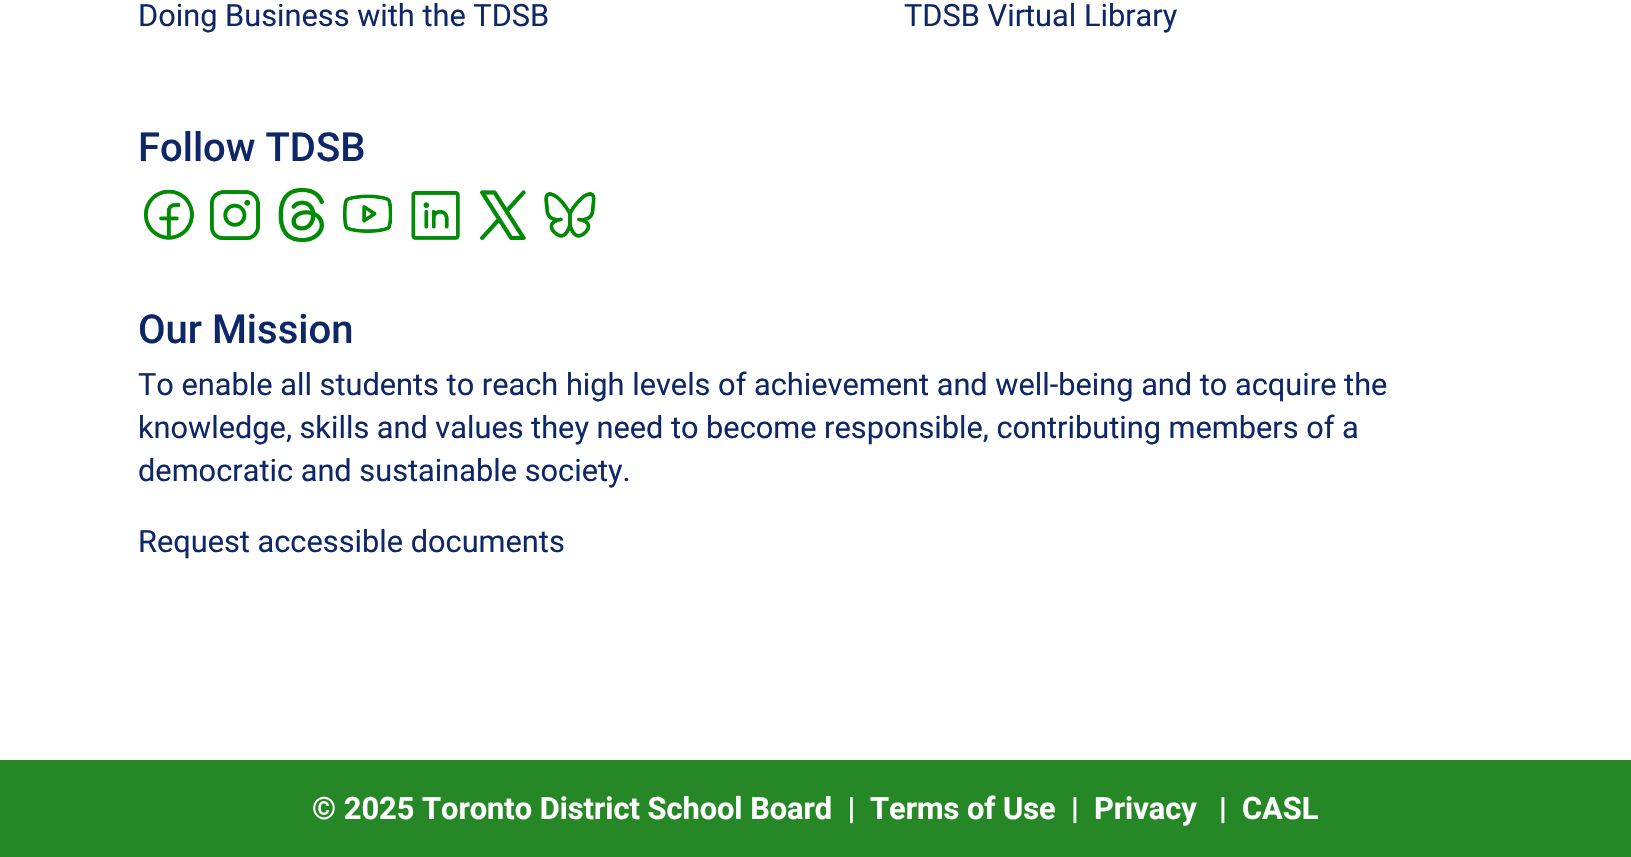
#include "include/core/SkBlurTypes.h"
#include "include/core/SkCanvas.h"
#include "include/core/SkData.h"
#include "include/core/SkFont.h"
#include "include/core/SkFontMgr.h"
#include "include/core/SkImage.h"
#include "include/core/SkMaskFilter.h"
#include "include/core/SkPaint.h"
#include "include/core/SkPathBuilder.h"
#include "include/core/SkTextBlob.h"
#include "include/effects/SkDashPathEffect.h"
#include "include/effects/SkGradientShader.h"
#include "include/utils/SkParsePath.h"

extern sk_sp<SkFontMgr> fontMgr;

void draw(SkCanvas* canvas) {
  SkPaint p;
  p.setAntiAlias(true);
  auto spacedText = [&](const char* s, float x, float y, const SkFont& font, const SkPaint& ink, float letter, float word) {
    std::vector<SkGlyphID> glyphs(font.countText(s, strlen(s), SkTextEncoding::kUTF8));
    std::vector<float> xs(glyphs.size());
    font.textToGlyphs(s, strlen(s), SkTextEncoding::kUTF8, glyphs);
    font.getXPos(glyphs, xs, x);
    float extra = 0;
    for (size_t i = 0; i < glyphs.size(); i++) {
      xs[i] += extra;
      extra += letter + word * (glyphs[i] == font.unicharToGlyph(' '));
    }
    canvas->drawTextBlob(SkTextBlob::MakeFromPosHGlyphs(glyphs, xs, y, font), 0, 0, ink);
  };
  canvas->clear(SK_ColorWHITE);
  canvas->drawImageRect(SkImages::DeferredFromEncodedData(SkData::MakeFromFileName("images/1.png")), SkRect::MakeLTRB(144, 189, 194, 240), SkSamplingOptions());
  canvas->drawImageRect(SkImages::DeferredFromEncodedData(SkData::MakeFromFileName("images/2.png")), SkRect::MakeLTRB(210, 190, 260, 240), SkSamplingOptions());
  canvas->drawImageRect(SkImages::DeferredFromEncodedData(SkData::MakeFromFileName("images/3.png")), SkRect::MakeLTRB(278, 188, 324, 242), SkSamplingOptions());
  canvas->drawImageRect(SkImages::DeferredFromEncodedData(SkData::MakeFromFileName("images/4.png")), SkRect::MakeLTRB(343, 194, 393, 233), SkSamplingOptions());
  canvas->drawImageRect(SkImages::DeferredFromEncodedData(SkData::MakeFromFileName("images/5.png")), SkRect::MakeLTRB(411, 191, 460, 240), SkSamplingOptions());
  canvas->drawImageRect(SkImages::DeferredFromEncodedData(SkData::MakeFromFileName("images/6.png")), SkRect::MakeLTRB(480, 190, 526, 240), SkSamplingOptions());
  canvas->drawImageRect(SkImages::DeferredFromEncodedData(SkData::MakeFromFileName("images/7.png")), SkRect::MakeLTRB(544, 192, 596, 238), SkSamplingOptions());
  p.setColor(SkColorSetRGB(38, 135, 38));
  canvas->drawRect(SkRect::MakeLTRB(0, 760, 1631, 857), p);
  SkFont font1(fontMgr->matchFamilyStyle("Roboto", SkFontStyle::Normal()), 30.75f);
  font1.setSubpixel(true);
  p.setColor(SkColorSetRGB(14, 39, 103));
  canvas->drawString("Doing Business with the TDSB", 138, 26, font1, p);
  canvas->drawString("TDSB Virtual Library", 904, 26, font1, p);
  SkFont font2(fontMgr->matchFamilyStyle("Roboto", SkFontStyle(500, SkFontStyle::kNormal_Width, SkFontStyle::kUpright_Slant)), 40);
  font2.setSubpixel(true);
  canvas->drawString("Follow TDSB", 138, 161, font2, p);
  canvas->drawString("Our Mission", 138, 343, font2, p);
  canvas->drawString("To enable all students to reach high levels of achievement and well-being and to acquire the", 138, 395, font1, p);
  spacedText("knowledge, skills and values they need to become responsible, contributing members of a", 138, 438, font1, p, 0, -0.1f);
  canvas->drawString("democratic and sustainable society.", 138, 481, font1, p);
  canvas->drawString("Request accessible documents", 138, 552, font1, p);
  SkFont font3(fontMgr->matchFamilyStyle("Roboto", SkFontStyle::Bold()), 30.75f);
  font3.setSubpixel(true);
  p.setColor(SK_ColorWHITE);
  canvas->drawString("© 2025 Toronto District School Board  |", 312, 819, font3, p);
  canvas->drawString("Terms of Use", 870, 819, font3, p);
  canvas->drawString("|", 1071, 819, font3, p);
  canvas->drawString("Privacy", 1094, 819, font3, p);
  canvas->drawString("|", 1219, 819, font3, p);
  canvas->drawString("CASL", 1242, 819, font3, p);
}
